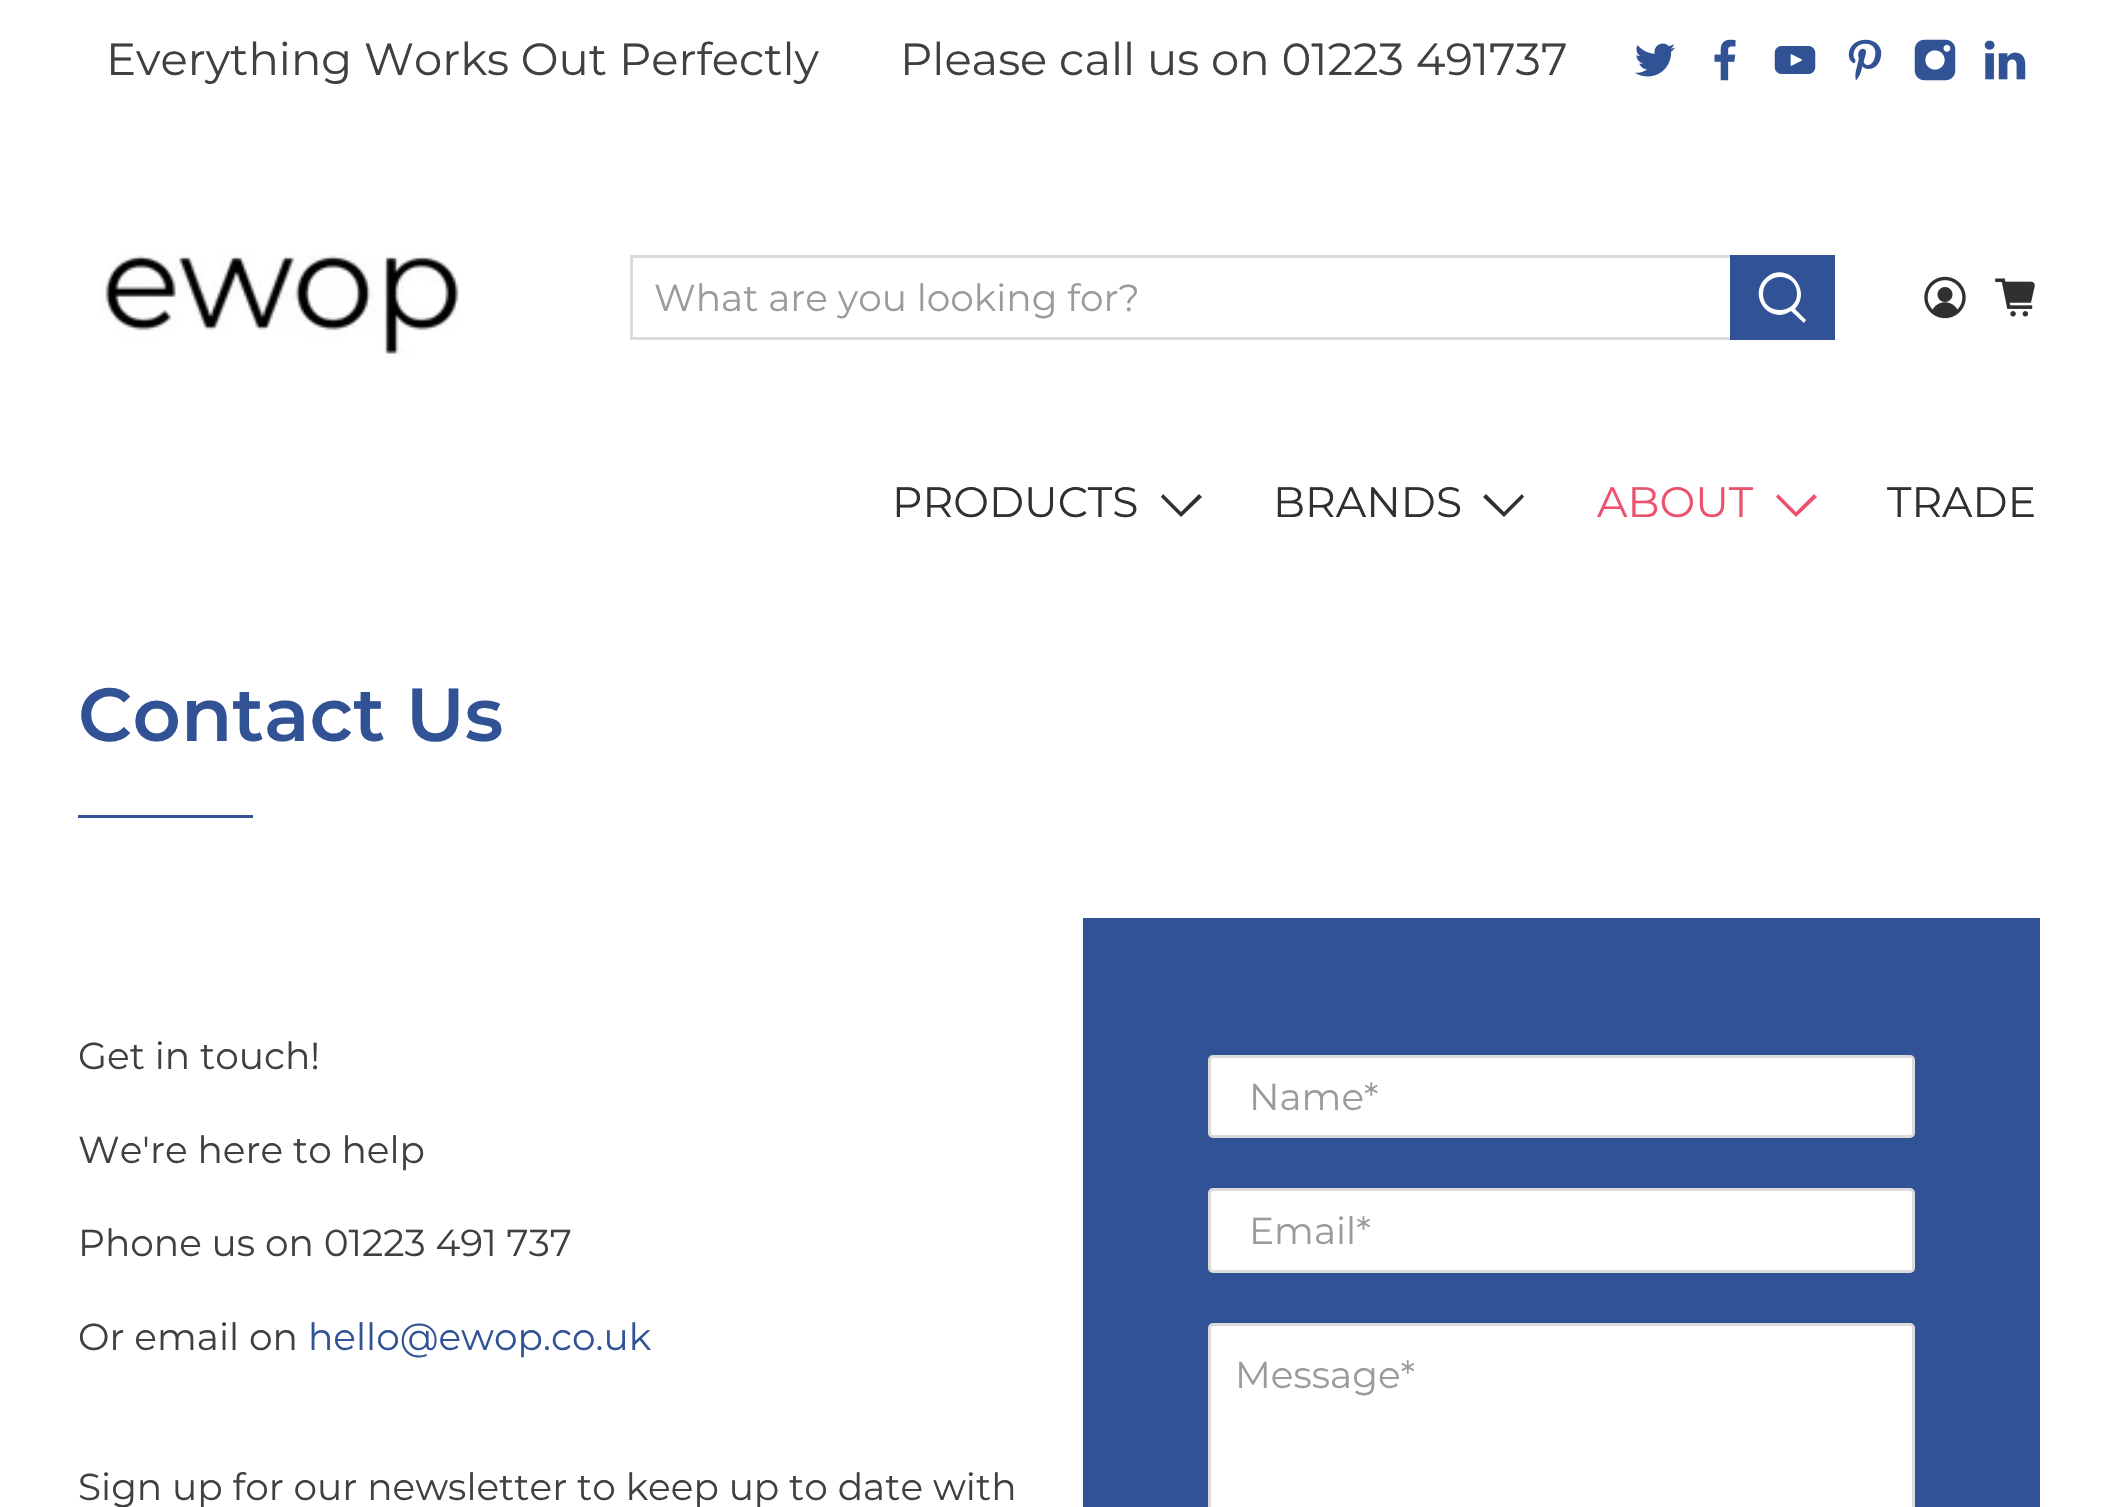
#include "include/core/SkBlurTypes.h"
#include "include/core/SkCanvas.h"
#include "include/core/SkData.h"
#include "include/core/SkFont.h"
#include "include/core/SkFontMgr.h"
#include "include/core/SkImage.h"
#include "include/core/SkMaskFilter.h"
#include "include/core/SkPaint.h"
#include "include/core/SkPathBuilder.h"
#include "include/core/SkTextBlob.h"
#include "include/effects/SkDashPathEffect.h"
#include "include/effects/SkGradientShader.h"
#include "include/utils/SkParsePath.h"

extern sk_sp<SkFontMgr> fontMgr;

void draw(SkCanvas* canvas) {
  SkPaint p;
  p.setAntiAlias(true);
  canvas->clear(SK_ColorWHITE);
  canvas->drawImageRect(SkImages::DeferredFromEncodedData(SkData::MakeFromFileName("images/1.png")), SkRect::MakeLTRB(1635, 43, 1676, 77), SkSamplingOptions());
  canvas->drawImageRect(SkImages::DeferredFromEncodedData(SkData::MakeFromFileName("images/2.png")), SkRect::MakeLTRB(1714, 39, 1736, 81), SkSamplingOptions());
  canvas->drawImageRect(SkImages::DeferredFromEncodedData(SkData::MakeFromFileName("images/3.png")), SkRect::MakeLTRB(1774, 46, 1816, 74), SkSamplingOptions());
  canvas->drawImageRect(SkImages::DeferredFromEncodedData(SkData::MakeFromFileName("images/4.png")), SkRect::MakeLTRB(1848, 39, 1882, 81), SkSamplingOptions());
  canvas->drawImageRect(SkImages::DeferredFromEncodedData(SkData::MakeFromFileName("images/5.png")), SkRect::MakeLTRB(1914, 39, 1956, 81), SkSamplingOptions());
  canvas->drawImageRect(SkImages::DeferredFromEncodedData(SkData::MakeFromFileName("images/6.png")), SkRect::MakeLTRB(1984, 40, 2026, 80), SkSamplingOptions());
  canvas->drawImageRect(SkImages::DeferredFromEncodedData(SkData::MakeFromFileName("images/7.png")), SkRect::MakeLTRB(100, 254, 459, 358), SkSamplingOptions());
  p.setStyle(SkPaint::kStroke_Style);
  p.setStrokeWidth(3);
  p.setColor(SkColorSetRGB(219, 219, 219));
  canvas->drawRect(SkRect::MakeLTRB(631.5f, 256.5f, 1731.5f, 338.5f), p);
  p.setStyle(SkPaint::kFill_Style);
  p.setColor(SkColorSetRGB(49, 83, 149));
  canvas->drawRect(SkRect::MakeLTRB(1730, 255, 1835, 340), p);
  p.setColor(SK_ColorWHITE);
  canvas->drawPath(SkPathBuilder().moveTo(1806, 320).lineTo(1795, 309).cubicTo(1813, 290, 1787, 261, 1767, 277).cubicTo(1746, 294, 1769, 326, 1791, 311).lineTo(1804, 323).close().moveTo(1763, 294).cubicTo(1763, 272, 1796, 271, 1797, 293).cubicTo(1798, 315, 1763, 316, 1763, 294).close().detach(), p);
  canvas->drawImageRect(SkImages::DeferredFromEncodedData(SkData::MakeFromFileName("images/8.png")), SkRect::MakeLTRB(1924, 276, 1966, 319), SkSamplingOptions());
  canvas->drawImageRect(SkImages::DeferredFromEncodedData(SkData::MakeFromFileName("images/9.png")), SkRect::MakeLTRB(1995, 278, 2035, 317), SkSamplingOptions());
  p.setColor(SkColorSetRGB(48, 48, 48));
  canvas->drawPath(SkPathBuilder().moveTo(1181, 517).lineTo(1161, 497).lineTo(1163, 494).lineTo(1181, 512).lineTo(1199, 494).lineTo(1202, 497).close().detach(), p);
  canvas->drawPath(SkPathBuilder().moveTo(1504, 517).lineTo(1483, 497).lineTo(1486, 494).lineTo(1504, 512).lineTo(1522, 494).lineTo(1524, 497).close().detach(), p);
  p.setColor(SkColorSetRGB(235, 82, 110));
  canvas->drawPath(SkPathBuilder().moveTo(1796, 517).lineTo(1776, 497).lineTo(1778, 494).lineTo(1796, 512).lineTo(1814, 494).lineTo(1817, 497).close().detach(), p);
  p.setColor(SkColorSetRGB(49, 83, 149));
  canvas->drawRect(SkRect::MakeLTRB(78, 815, 253, 818), p);
  canvas->drawRect(SkRect::MakeLTRB(1083, 918, 2040, 1507), p);
  p.setColor(SK_ColorWHITE);
  canvas->drawRoundRect(SkRect::MakeLTRB(1209.5f, 1056.5f, 1913.5f, 1136.5f), 3.5f, 3.5f, p);
  p.setStyle(SkPaint::kStroke_Style);
  p.setColor(SkColorSetRGB(219, 219, 219));
  canvas->drawRoundRect(SkRect::MakeLTRB(1209.5f, 1056.5f, 1913.5f, 1136.5f), 3.5f, 3.5f, p);
  p.setStyle(SkPaint::kFill_Style);
  p.setColor(SK_ColorWHITE);
  canvas->drawRoundRect(SkRect::MakeLTRB(1209.5f, 1189.5f, 1913.5f, 1271.5f), 3.5f, 3.5f, p);
  p.setStyle(SkPaint::kStroke_Style);
  p.setColor(SkColorSetRGB(219, 219, 219));
  canvas->drawRoundRect(SkRect::MakeLTRB(1209.5f, 1189.5f, 1913.5f, 1271.5f), 3.5f, 3.5f, p);
  p.setStyle(SkPaint::kFill_Style);
  p.setColor(SK_ColorWHITE);
  canvas->drawRoundRect(SkRect::MakeLTRB(1209.5f, 1324.5f, 1913.5f, 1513.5f), 3.5f, 3.5f, p);
  p.setStyle(SkPaint::kStroke_Style);
  p.setColor(SkColorSetRGB(219, 219, 219));
  canvas->drawRoundRect(SkRect::MakeLTRB(1209.5f, 1324.5f, 1913.5f, 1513.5f), 3.5f, 3.5f, p);
  SkFont font1(fontMgr->matchFamilyStyle("Montserrat", SkFontStyle::Normal()), 45);
  font1.setSubpixel(true);
  p.setStyle(SkPaint::kFill_Style);
  p.setColor(SkColorSetRGB(64, 64, 64));
  canvas->drawString("Everything Works Out Perfectly", 106, 75, font1, p);
  canvas->drawString("Please call us on 01223 491737", 900, 75, font1, p);
  SkFont font2(fontMgr->matchFamilyStyle("Montserrat", SkFontStyle::Normal()), 37.5f);
  font2.setSubpixel(true);
  p.setColor(SkColorSetRGB(155, 155, 155));
  canvas->drawString("What are you looking for?", 654, 311, font2, p);
  SkFont font3(fontMgr->matchFamilyStyle("Montserrat", SkFontStyle::Normal()), 42.5f);
  font3.setSubpixel(true);
  p.setColor(SkColorSetRGB(48, 48, 48));
  canvas->drawString("PRODUCTS", 892, 517, font3, p);
  canvas->drawString("BRANDS", 1273, 517, font3, p);
  p.setColor(SkColorSetRGB(235, 82, 110));
  canvas->drawString("ABOUT", 1597, 517, font3, p);
  p.setColor(SkColorSetRGB(48, 48, 48));
  canvas->drawString("TRADE", 1887, 517, font3, p);
  SkFont font4(fontMgr->matchFamilyStyle("Montserrat", SkFontStyle(600, SkFontStyle::kNormal_Width, SkFontStyle::kUpright_Slant)), 75);
  font4.setSubpixel(true);
  p.setColor(SkColorSetRGB(49, 83, 149));
  canvas->drawString("Contact Us", 78, 741, font4, p);
  p.setColor(SkColorSetRGB(64, 64, 64));
  canvas->drawString("Get in touch!", 78, 1069, font2, p);
  canvas->drawString("We're here to help", 78, 1163, font2, p);
  canvas->drawString("Phone us on 01223 491 737", 78, 1256, font2, p);
  canvas->drawString("Or email on", 78, 1350, font2, p);
  p.setColor(SkColorSetRGB(49, 83, 149));
  canvas->drawString("hello@ewop.co.uk", 308, 1350, font2, p);
  p.setColor(SkColorSetRGB(64, 64, 64));
  canvas->drawString("Sign up for our newsletter to keep up to date with", 78, 1500, font2, p);
  p.setColor(SkColorSetRGB(155, 155, 155));
  canvas->drawString("Name*", 1249, 1110, font2, p);
  canvas->drawString("Email*", 1249, 1244, font2, p);
  canvas->drawString("Message*", 1235, 1388, font2, p);
}
